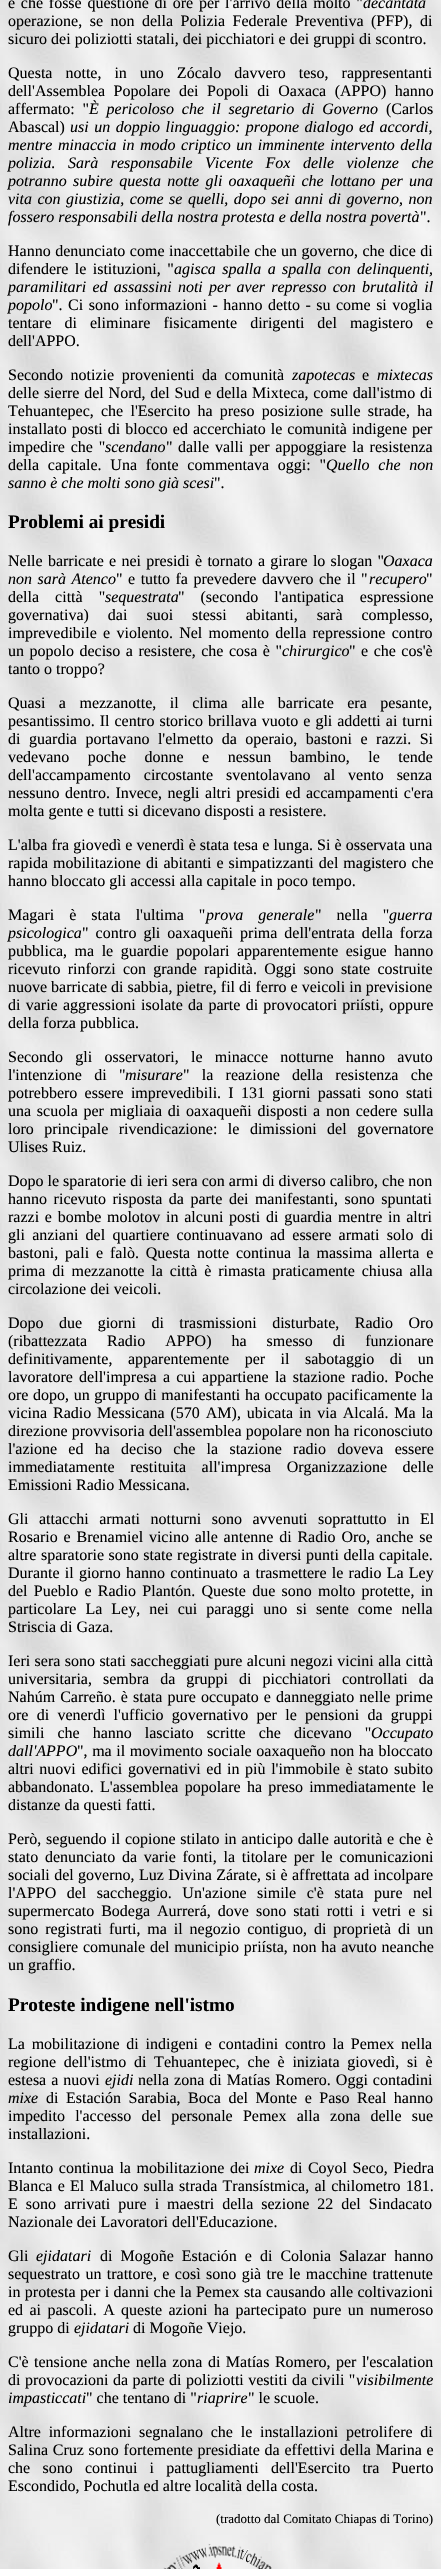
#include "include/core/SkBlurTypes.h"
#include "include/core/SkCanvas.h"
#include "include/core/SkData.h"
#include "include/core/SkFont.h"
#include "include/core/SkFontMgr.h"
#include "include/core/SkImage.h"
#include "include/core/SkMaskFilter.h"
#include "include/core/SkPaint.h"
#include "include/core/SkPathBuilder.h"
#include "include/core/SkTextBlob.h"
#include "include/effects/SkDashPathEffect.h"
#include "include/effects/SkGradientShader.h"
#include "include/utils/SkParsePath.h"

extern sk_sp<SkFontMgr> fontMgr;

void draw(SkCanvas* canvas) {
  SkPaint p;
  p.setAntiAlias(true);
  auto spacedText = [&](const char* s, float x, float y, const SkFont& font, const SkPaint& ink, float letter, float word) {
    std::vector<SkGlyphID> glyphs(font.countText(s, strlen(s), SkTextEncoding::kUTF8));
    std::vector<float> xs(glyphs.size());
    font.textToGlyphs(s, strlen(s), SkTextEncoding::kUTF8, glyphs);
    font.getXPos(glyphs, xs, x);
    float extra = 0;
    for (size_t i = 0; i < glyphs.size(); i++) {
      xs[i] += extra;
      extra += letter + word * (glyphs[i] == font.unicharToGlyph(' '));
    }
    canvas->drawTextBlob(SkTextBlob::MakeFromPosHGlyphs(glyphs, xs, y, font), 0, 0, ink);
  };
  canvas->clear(SK_ColorWHITE);
  canvas->drawImageRect(SkImages::DeferredFromEncodedData(SkData::MakeFromFileName("images/1.png")), SkRect::MakeLTRB(0, 0, 441, 2569), SkSamplingOptions());
  canvas->drawImageRect(SkImages::DeferredFromEncodedData(SkData::MakeFromFileName("images/2.png")), SkRect::MakeLTRB(163, 2544, 272, 2569), SkSamplingOptions());
  SkFont font1(fontMgr->matchFamilyStyle("Liberation Serif", SkFontStyle::Normal()), 16);
  font1.setSubpixel(true);
  p.setColor(SK_ColorBLACK);
  spacedText("e che fosse questione di ore per l'arrivo della molto \"", 8, 8, font1, p, 0, 1.75f);
  SkFont font2(fontMgr->matchFamilyStyle("Liberation Serif", SkFontStyle::Italic()), 16);
  font2.setSubpixel(true);
  canvas->drawString("decantata", 363, 8, font2, p);
  spacedText("operazione, se non della Polizia Federale Preventiva (PFP), di", 8, 26, font1, p, 0, 3.5f);
  canvas->drawString("sicuro dei poliziotti statali, dei picchiatori e dei gruppi di scontro.", 8, 44, font1, p);
  spacedText("Questa notte, in uno Zócalo davvero teso, rappresentanti", 8, 78, font1, p, 0, 9);
  spacedText("dell'Assemblea Popolare dei Popoli di Oaxaca (APPO) hanno", 8, 96, font1, p, 0, 4.5f);
  spacedText("affermato: \"", 8, 114, font1, p, 0, 3.75f);
  spacedText("È pericoloso che il segretario di Governo", 89, 114, font2, p, 0, 3.75f);
  canvas->drawString("(Carlos", 386, 114, font1, p);
  canvas->drawString("Abascal)", 8, 132, font1, p);
  spacedText("usi un doppio linguaggio: propone dialogo ed accordi,", 70, 132, font2, p, 0, 1.5f);
  spacedText("mentre minaccia in modo criptico un imminente intervento della", 8, 150, font2, p, 0, 1.5f);
  spacedText("polizia. Sarà responsabile Vicente Fox delle violenze che", 8, 168, font2, p, 0, 8.5f);
  spacedText("potranno subire questa notte gli oaxaqueñi che lottano per una", 8, 186, font2, p, 0, 2.25f);
  spacedText("vita con giustizia, come se quelli, dopo sei anni di governo, non", 8, 204, font2, p, 0, 1.5f);
  canvas->drawString("fossero responsabili della nostra protesta e della nostra povertà", 8, 222, font2, p);
  canvas->drawString("\".", 420, 222, font1, p);
  spacedText("Hanno denunciato come inaccettabile che un governo, che dice di", 8, 256, font1, p, 0, 0.5f);
  spacedText("difendere le istituzioni, \"", 8, 274, font1, p, 0, 2.4f);
  spacedText("agisca spalla a spalla con delinquenti,", 174, 274, font2, p, 0, 2.4f);
  spacedText("paramilitari ed assassini noti per aver represso con brutalità il", 8, 292, font2, p, 0, 2.25f);
  canvas->drawString("popolo", 8, 310, font2, p);
  spacedText("\". Ci sono informazioni - hanno detto - su come si voglia", 52, 310, font1, p, 0, 1.5f);
  spacedText("tentare di eliminare fisicamente dirigenti del magistero e", 8, 328, font1, p, 0, 9);
  canvas->drawString("dell'APPO.", 8, 346, font1, p);
  spacedText("Secondo notizie provenienti da comunità", 8, 380, font1, p, 0, 3.5f);
  canvas->drawString("zapotecas", 292, 380, font2, p);
  canvas->drawString("e", 362, 380, font1, p);
  canvas->drawString("mixtecas", 377, 380, font2, p);
  spacedText("delle sierre del Nord, del Sud e della Mixteca, come dall'istmo di", 8, 398, font1, p, 0, 0.8f);
  spacedText("Tehuantepec, che l'Esercito ha preso posizione sulle strade, ha", 8, 416, font1, p, 0, 3.25f);
  spacedText("installato posti di blocco ed accerchiato le comunità indigene per", 8, 434, font1, p, 0, 1);
  spacedText("impedire che \"", 8, 452, font1, p, 0, 1.8f);
  canvas->drawString("scendano", 105, 452, font2, p);
  canvas->drawString("\"", 166, 452, font1, p);
  spacedText("dalle valli per appoggiare la resistenza", 178, 452, font1, p, 0, 1.8f);
  spacedText("della capitale. Una fonte commentava oggi: \"", 8, 470, font1, p, 0, 4.75f);
  spacedText("Quello che non", 326, 470, font2, p, 0, 4.75f);
  canvas->drawString("sanno è che molti sono già scesi", 8, 488, font2, p);
  canvas->drawString("\".", 214, 488, font1, p);
  SkFont font3(fontMgr->matchFamilyStyle("Liberation Serif", SkFontStyle::Bold()), 19.25f);
  font3.setSubpixel(true);
  canvas->drawString("Problemi ai presidi", 8, 528, font3, p);
  spacedText("Nelle barricate e nei presidi è tornato a girare lo slogan \"", 8, 566, font1, p, 0, 1.25f);
  canvas->drawString("Oaxaca", 383, 566, font2, p);
  spacedText("non sarà Atenco", 8, 584, font2, p, 0, 1.5f);
  spacedText("\" e tutto fa prevedere davvero che il \"", 116, 584, font1, p, 0, 1.5f);
  canvas->drawString("\"", 426, 584, font1, p);
  canvas->drawString("recupero", 369, 584, font2, p);
  spacedText("della città \"", 8, 602, font1, p, 0, 12);
  canvas->drawString("sequestrata", 105, 602, font2, p);
  spacedText("\" (secondo l'antipatica espressione", 178, 602, font1, p, 0, 12);
  spacedText("governativa) dai suoi stessi abitanti, sarà complesso,", 8, 620, font1, p, 0, 15);
  spacedText("imprevedibile e violento. Nel momento della repressione contro", 8, 638, font1, p, 0, 2.25f);
  spacedText("un popolo deciso a resistere, che cosa è \"", 8, 656, font1, p, 0, 1.5f);
  canvas->drawString("chirurgico", 282, 656, font2, p);
  spacedText("\" e che cos'è", 349, 656, font1, p, 0, 1.5f);
  canvas->drawString("tanto o troppo?", 8, 674, font1, p);
  spacedText("Quasi a mezzanotte, il clima alle barricate era pesante,", 8, 708, font1, p, 0, 9.5f);
  spacedText("pesantissimo. Il centro storico brillava vuoto e gli addetti ai turni", 8, 726, font1, p, 0, 1);
  spacedText("di guardia portavano l'elmetto da operaio, bastoni e razzi. Si", 8, 744, font1, p, 0, 4.5f);
  spacedText("vedevano poche donne e nessun bambino, le tende", 8, 762, font1, p, 0, 14.5f);
  spacedText("dell'accampamento circostante sventolavano al vento senza", 8, 780, font1, p, 0, 9);
  spacedText("nessuno dentro. Invece, negli altri presidi ed accampamenti c'era", 8, 798, font1, p, 0, 1.5f);
  canvas->drawString("molta gente e tutti si dicevano disposti a resistere.", 8, 816, font1, p);
  spacedText("L'alba fra giovedì e venerdì è stata tesa e lunga. Si è osservata una", 8, 850, font1, p, 0, 0.1f);
  spacedText("rapida mobilitazione di abitanti e simpatizzanti del magistero che", 8, 868, font1, p, 0, 1);
  canvas->drawString("hanno bloccato gli accessi alla capitale in poco tempo.", 8, 886, font1, p);
  spacedText("Magari è stata l'ultima \"", 8, 920, font1, p, 0, 11);
  spacedText("prova generale", 206, 920, font2, p, 0, 11);
  spacedText("\" nella \"", 315, 920, font1, p, 0, 11);
  canvas->drawString("guerra", 389, 920, font2, p);
  canvas->drawString("psicologica", 8, 938, font2, p);
  spacedText("\" contro gli oaxaqueñi prima dell'entrata della forza", 82, 938, font1, p, 0, 3);
  spacedText("pubblica, ma le guardie popolari apparentemente esigue hanno", 8, 956, font1, p, 0, 3.5f);
  spacedText("ricevuto rinforzi con grande rapidità. Oggi sono state costruite", 8, 974, font1, p, 0, 3.25f);
  canvas->drawString("nuove barricate di sabbia, pietre, fil di ferro e veicoli in previsione", 8, 992, font1, p);
  spacedText("di varie aggressioni isolate da parte di provocatori priísti, oppure", 8, 1010, font1, p, 0, 1.25f);
  canvas->drawString("della forza pubblica.", 8, 1028, font1, p);
  spacedText("Secondo gli osservatori, le minacce notturne hanno avuto", 8, 1062, font1, p, 0, 8.25f);
  spacedText("l'intenzione di \"", 8, 1080, font1, p, 0, 8.25f);
  canvas->drawString("misurare", 125, 1080, font2, p);
  spacedText("\" la reazione della resistenza che", 183, 1080, font1, p, 0, 8.25f);
  spacedText("potrebbero essere imprevedibili. I 131 giorni passati sono stati", 8, 1098, font1, p, 0, 3.25f);
  spacedText("una scuola per migliaia di oaxaqueñi disposti a non cedere sulla", 8, 1116, font1, p, 0, 1.75f);
  spacedText("loro principale rivendicazione: le dimissioni del governatore", 8, 1134, font1, p, 0, 6.5f);
  canvas->drawString("Ulises Ruiz.", 8, 1152, font1, p);
  canvas->drawString("Dopo le sparatorie di ieri sera con armi di diverso calibro, che non", 8, 1186, font1, p);
  spacedText("hanno ricevuto risposta da parte dei manifestanti, sono spuntati", 8, 1204, font1, p, 0, 2.5f);
  spacedText("razzi e bombe molotov in alcuni posti di guardia mentre in altri", 8, 1222, font1, p, 0, 1.75f);
  spacedText("gli anziani del quartiere continuavano ad essere armati solo di", 8, 1240, font1, p, 0, 3.25f);
  spacedText("bastoni, pali e falò. Questa notte continua la massima allerta e", 8, 1258, font1, p, 0, 2.9f);
  spacedText("prima di mezzanotte la città è rimasta praticamente chiusa alla", 8, 1276, font1, p, 0, 2.9f);
  canvas->drawString("circolazione dei veicoli.", 8, 1294, font1, p);
  spacedText("Dopo due giorni di trasmissioni disturbate, Radio Oro", 8, 1328, font1, p, 0, 11.5f);
  spacedText("(ribattezzata Radio APPO) ha smesso di funzionare", 8, 1346, font1, p, 0, 16);
  spacedText("definitivamente, apparentemente per il sabotaggio di un", 8, 1364, font1, p, 0, 11.5f);
  spacedText("lavoratore dell'impresa a cui appartiene la stazione radio. Poche", 8, 1382, font1, p, 0, 2.25f);
  spacedText("ore dopo, un gruppo di manifestanti ha occupato pacificamente la", 8, 1400, font1, p, 0, 0.6f);
  spacedText("vicina Radio Messicana (570 AM), ubicata in via Alcalá. Ma la", 8, 1418, font1, p, 0, 1.9f);
  spacedText("direzione provvisoria dell'assemblea popolare non ha riconosciuto", 8, 1436, font1, p, 0, 0.25f);
  spacedText("l'azione ed ha deciso che la stazione radio doveva essere", 8, 1454, font1, p, 0, 7.25f);
  spacedText("immediatamente restituita all'impresa Organizzazione delle", 8, 1472, font1, p, 0, 11.5f);
  canvas->drawString("Emissioni Radio Messicana.", 8, 1490, font1, p);
  spacedText("Gli attacchi armati notturni sono avvenuti soprattutto in El", 8, 1524, font1, p, 0, 6.5f);
  spacedText("Rosario e Brenamiel vicino alle antenne di Radio Oro, anche se", 8, 1542, font1, p, 0, 1.8f);
  spacedText("altre sparatorie sono state registrate in diversi punti della capitale.", 8, 1560, font1, p, 0, 0.5f);
  spacedText("Durante il giorno hanno continuato a trasmettere le radio La Ley", 8, 1578, font1, p, 0, 1.25f);
  spacedText("del Pueblo e Radio Plantón. Queste due sono molto protette, in", 8, 1596, font1, p, 0, 2.25f);
  spacedText("particolare La Ley, nei cui paraggi uno si sente come nella", 8, 1614, font1, p, 0, 5);
  canvas->drawString("Striscia di Gaza.", 8, 1632, font1, p);
  spacedText("Ieri sera sono stati saccheggiati pure alcuni negozi vicini alla città", 8, 1666, font1, p, 0, 0.4f);
  spacedText("universitaria, sembra da gruppi di picchiatori controllati da", 8, 1684, font1, p, 0, 7);
  spacedText("Nahúm Carreño. è stata pure occupato e danneggiato nelle prime", 8, 1702, font1, p, 0, 1.1f);
  spacedText("ore di venerdì l'ufficio governativo per le pensioni da gruppi", 8, 1720, font1, p, 0, 4.25f);
  spacedText("simili che hanno lasciato scritte che dicevano \"", 8, 1738, font1, p, 0, 9);
  canvas->drawString("Occupato", 371, 1738, font2, p);
  canvas->drawString("dall'APPO", 8, 1756, font2, p);
  spacedText("\", ma il movimento sociale oaxaqueño non ha bloccato", 77, 1756, font1, p, 0, 0.6f);
  spacedText("altri nuovi edifici governativi ed in più l'immobile è stato subito", 8, 1774, font1, p, 0, 1.6f);
  spacedText("abbandonato. L'assemblea popolare ha preso immediatamente le", 8, 1792, font1, p, 0, 2.25f);
  canvas->drawString("distanze da questi fatti.", 8, 1810, font1, p);
  spacedText("Però, seguendo il copione stilato in anticipo dalle autorità e che è", 8, 1844, font1, p, 0, 0.75f);
  spacedText("stato denunciato da varie fonti, la titolare per le comunicazioni", 8, 1862, font1, p, 0, 2.75f);
  spacedText("sociali del governo, Luz Divina Zárate, si è affrettata ad incolpare", 8, 1880, font1, p, 0, 0.4f);
  spacedText("l'APPO del saccheggio. Un'azione simile c'è stata pure nel", 8, 1898, font1, p, 0, 6.5f);
  spacedText("supermercato Bodega Aurrerá, dove sono stati rotti i vetri e si", 8, 1916, font1, p, 0, 3);
  spacedText("sono registrati furti, ma il negozio contiguo, di proprietà di un", 8, 1934, font1, p, 0, 2.9f);
  spacedText("consigliere comunale del municipio priísta, non ha avuto neanche", 8, 1952, font1, p, 0, 0.75f);
  canvas->drawString("un graffio.", 8, 1970, font1, p);
  canvas->drawString("Proteste indigene nell'istmo", 8, 2011, font3, p);
  spacedText("La mobilitazione di indigeni e contadini contro la Pemex nella", 8, 2049, font1, p, 0, 2.75f);
  spacedText("regione dell'istmo di Tehuantepec, che è iniziata giovedì, si è", 8, 2067, font1, p, 0, 3.75f);
  spacedText("estesa a nuovi", 8, 2085, font1, p, 0, 1);
  canvas->drawString("ejidi", 105, 2085, font2, p);
  spacedText("nella zona di Matías Romero. Oggi contadini", 138, 2085, font1, p, 0, 1);
  canvas->drawString("mixe", 8, 2103, font2, p);
  spacedText("di Estación Sarabia, Boca del Monte e Paso Real hanno", 46, 2103, font1, p, 0, 3.5f);
  spacedText("impedito l'accesso del personale Pemex alla zona delle sue", 8, 2121, font1, p, 0, 6.25f);
  canvas->drawString("installazioni.", 8, 2139, font1, p);
  spacedText("Intanto continua la mobilitazione dei", 8, 2173, font1, p, 0, 1.5f);
  canvas->drawString("mixe", 254, 2173, font2, p);
  spacedText("di Coyol Seco, Piedra", 290, 2173, font1, p, 0, 1.5f);
  spacedText("Blanca e El Maluco sulla strada Transístmica, al chilometro 181.", 8, 2191, font1, p, 0, 1.25f);
  spacedText("E sono arrivati pure i maestri della sezione 22 del Sindacato", 8, 2209, font1, p, 0, 4);
  canvas->drawString("Nazionale dei Lavoratori dell'Educazione.", 8, 2227, font1, p);
  canvas->drawString("Gli", 8, 2261, font1, p);
  canvas->drawString("ejidatari", 36, 2261, font2, p);
  spacedText("di Mogoñe Estación e di Colonia Salazar hanno", 100, 2261, font1, p, 0, 4);
  spacedText("sequestrato un trattore, e così sono già tre le macchine trattenute", 8, 2279, font1, p, 0, 1.4f);
  spacedText("in protesta per i danni che", 8, 2297, font1, p, 0, 0.4f);
  spacedText("la Pemex sta causando alle coltivazioni", 180, 2297, font1, p, 0, 0.4f);
  spacedText("ed ai pascoli. A queste azioni ha partecipato pure un numeroso", 8, 2315, font1, p, 0, 2.4f);
  canvas->drawString("gruppo di", 8, 2333, font1, p);
  canvas->drawString("ejidatari", 74, 2333, font2, p);
  canvas->drawString("di Mogoñe Viejo.", 133, 2333, font1, p);
  canvas->drawString("C'è", 8, 2367, font1, p);
  spacedText("tensione anche nella zona di Matías Romero, per l'escalation", 34, 2367, font1, p, 0, 1.5f);
  spacedText("di provocazioni da parte di poliziotti vestiti da civili \"", 8, 2385, font1, p, 0, 0.5f);
  canvas->drawString("visibilmente", 356, 2385, font2, p);
  canvas->drawString("impasticcati", 8, 2403, font2, p);
  canvas->drawString("\" che tentano di \"", 86, 2403, font1, p);
  canvas->drawString("riaprire", 197, 2403, font2, p);
  canvas->drawString("\" le scuole.", 248, 2403, font1, p);
  spacedText("Altre informazioni segnalano che le installazioni petrolifere di", 8, 2437, font1, p, 0, 3.75f);
  spacedText("Salina Cruz sono fortemente presidiate da effettivi della Marina e", 8, 2455, font1, p, 0, 0.75f);
  spacedText("che sono continui i pattugliamenti dell'Esercito tra Puerto", 8, 2473, font1, p, 0, 8.25f);
  canvas->drawString("Escondido, Pochutla ed altre località della costa.", 8, 2491, font1, p);
  SkFont font4(fontMgr->matchFamilyStyle("Liberation Serif", SkFontStyle::Normal()), 13);
  font4.setSubpixel(true);
  canvas->drawString("(tradotto dal Comitato Chiapas di Torino)", 216, 2523, font4, p);
}
